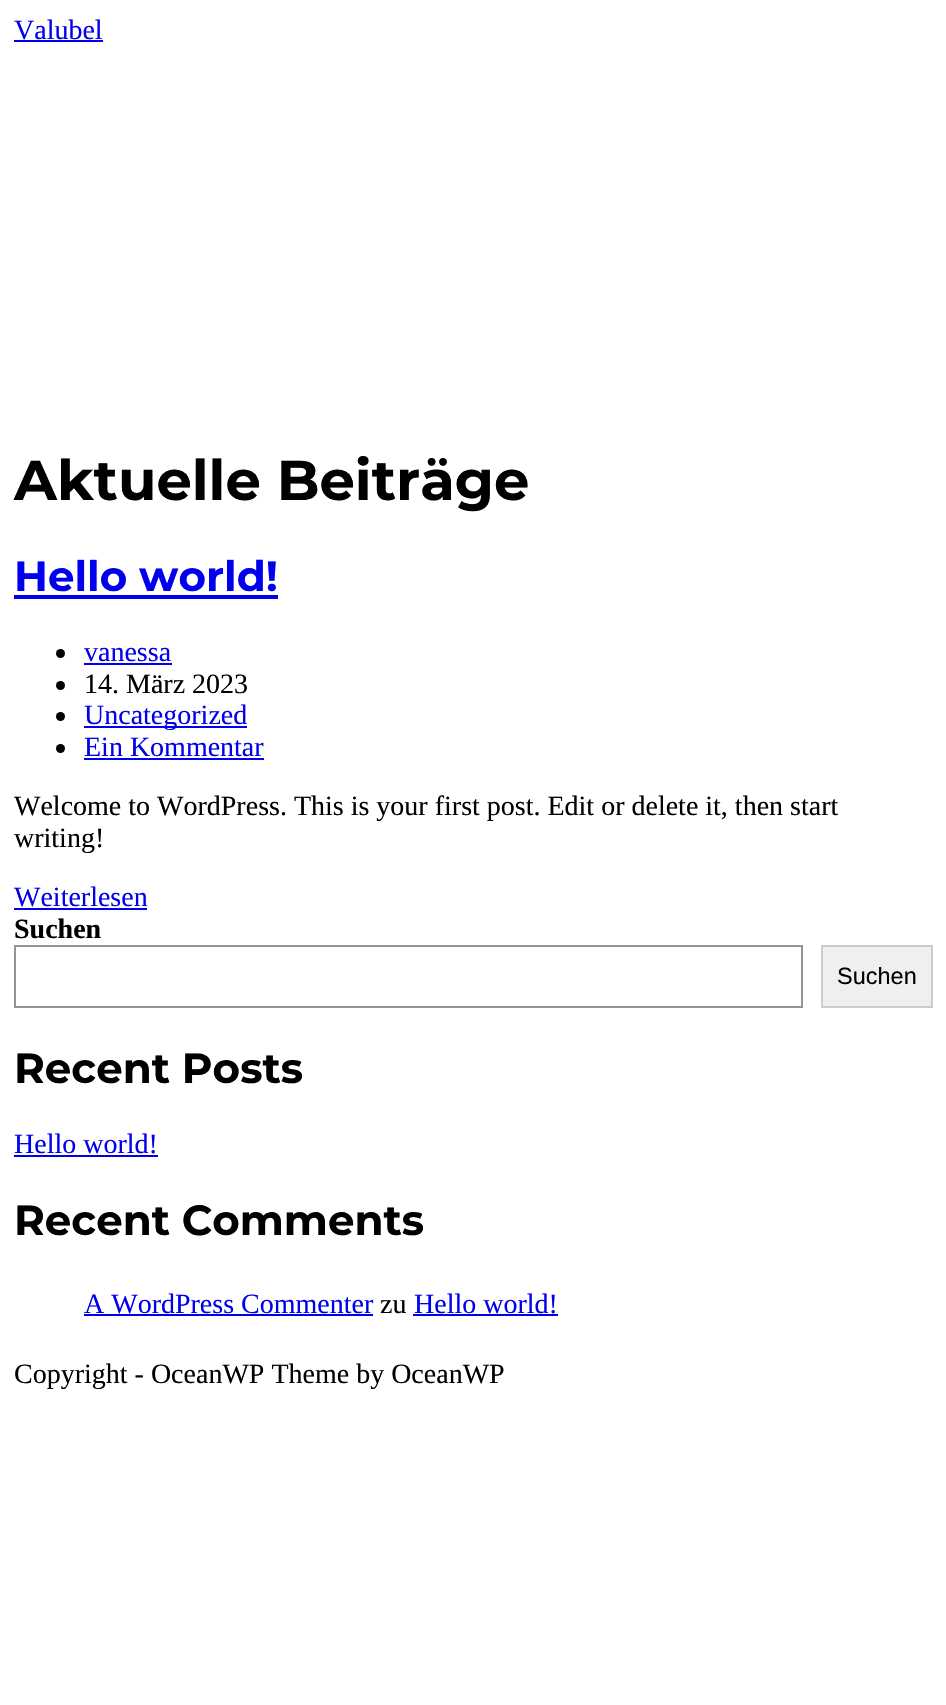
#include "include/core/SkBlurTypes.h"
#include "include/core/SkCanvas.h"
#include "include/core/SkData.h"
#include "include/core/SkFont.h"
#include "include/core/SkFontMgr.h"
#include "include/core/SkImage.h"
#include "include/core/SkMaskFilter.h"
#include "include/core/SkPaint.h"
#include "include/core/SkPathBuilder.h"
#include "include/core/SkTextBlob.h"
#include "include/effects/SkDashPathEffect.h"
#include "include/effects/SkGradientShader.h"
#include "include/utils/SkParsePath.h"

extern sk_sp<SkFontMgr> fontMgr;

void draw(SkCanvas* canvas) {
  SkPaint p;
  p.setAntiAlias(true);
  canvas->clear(SK_ColorWHITE);
  p.setColor(SkColorSetRGB(0, 0, 238));
  canvas->drawRect(SkRect::MakeLTRB(14, 40, 103, 42), p);
  canvas->drawRect(SkRect::MakeLTRB(14, 595, 278, 599), p);
  p.setColor(SK_ColorBLACK);
  canvas->drawCircle(60.5f, 653.5f, 4.5f, p);
  p.setColor(SkColorSetRGB(0, 0, 238));
  canvas->drawRect(SkRect::MakeLTRB(84, 663, 172, 665), p);
  p.setColor(SK_ColorBLACK);
  canvas->drawCircle(60.5f, 685.5f, 4.5f, p);
  canvas->drawCircle(60.5f, 716.5f, 4.5f, p);
  p.setColor(SkColorSetRGB(0, 0, 238));
  canvas->drawRect(SkRect::MakeLTRB(84, 726, 247, 728), p);
  p.setColor(SK_ColorBLACK);
  canvas->drawCircle(60.5f, 748.5f, 4.5f, p);
  p.setColor(SkColorSetRGB(0, 0, 238));
  canvas->drawRect(SkRect::MakeLTRB(84, 758, 264, 760), p);
  canvas->drawRect(SkRect::MakeLTRB(14, 908, 147, 910), p);
  p.setStyle(SkPaint::kStroke_Style);
  p.setStrokeWidth(2);
  p.setColor(SkColorSetRGB(148, 148, 148));
  canvas->drawRect(SkRect::MakeLTRB(15, 946, 802, 1007), p);
  p.setStyle(SkPaint::kFill_Style);
  p.setColor(SkColorSetRGB(239, 239, 239));
  canvas->drawRect(SkRect::MakeLTRB(822, 946, 932, 1007), p);
  p.setStyle(SkPaint::kStroke_Style);
  p.setColor(SkColorSetRGB(204, 204, 204));
  canvas->drawRect(SkRect::MakeLTRB(822, 946, 932, 1007), p);
  p.setStyle(SkPaint::kFill_Style);
  p.setColor(SkColorSetRGB(0, 0, 238));
  canvas->drawRect(SkRect::MakeLTRB(14, 1155, 158, 1157), p);
  canvas->drawRect(SkRect::MakeLTRB(84, 1314, 373, 1316), p);
  canvas->drawRect(SkRect::MakeLTRB(413, 1314, 558, 1316), p);
  SkFont font1(fontMgr->matchFamilyStyle("Liberation Serif", SkFontStyle::Normal()), 28);
  font1.setSubpixel(true);
  canvas->drawString("Valubel", 14, 39, font1, p);
  SkFont font2(fontMgr->matchFamilyStyle("Montserrat", SkFontStyle::Bold()), 56);
  font2.setSubpixel(true);
  p.setColor(SK_ColorBLACK);
  canvas->drawString("Aktuelle Beiträge", 14, 500, font2, p);
  SkFont font3(fontMgr->matchFamilyStyle("Montserrat", SkFontStyle::Bold()), 42);
  font3.setSubpixel(true);
  p.setColor(SkColorSetRGB(0, 0, 238));
  canvas->drawString("Hello world!", 14, 591, font3, p);
  canvas->drawString("vanessa", 84, 661, font1, p);
  p.setColor(SK_ColorBLACK);
  canvas->drawString("14. März 2023", 84, 693, font1, p);
  p.setColor(SkColorSetRGB(0, 0, 238));
  canvas->drawString("Uncategorized", 84, 724, font1, p);
  canvas->drawString("Ein Kommentar", 84, 756, font1, p);
  p.setColor(SK_ColorBLACK);
  canvas->drawString("Welcome to WordPress. This is your first post. Edit or delete it, then start", 14, 815, font1, p);
  canvas->drawString("writing!", 14, 847, font1, p);
  p.setColor(SkColorSetRGB(0, 0, 238));
  canvas->drawString("Weiterlesen", 14, 906, font1, p);
  SkFont font4(fontMgr->matchFamilyStyle("Liberation Serif", SkFontStyle::Bold()), 28);
  font4.setSubpixel(true);
  p.setColor(SK_ColorBLACK);
  canvas->drawString("Suchen", 14, 938, font4, p);
  SkFont font5(fontMgr->matchFamilyStyle("Liberation Sans", SkFontStyle::Normal()), 23.5f);
  font5.setSubpixel(true);
  canvas->drawString("Suchen", 837, 984, font5, p);
  canvas->drawString("Recent Posts", 14, 1083, font3, p);
  p.setColor(SkColorSetRGB(0, 0, 238));
  canvas->drawString("Hello world!", 14, 1153, font1, p);
  p.setColor(SK_ColorBLACK);
  canvas->drawString("Recent Comments", 14, 1235, font3, p);
  p.setColor(SkColorSetRGB(0, 0, 238));
  canvas->drawString("A WordPress Commenter", 84, 1313, font1, p);
  p.setColor(SK_ColorBLACK);
  canvas->drawString("zu", 380, 1313, font1, p);
  p.setColor(SkColorSetRGB(0, 0, 238));
  canvas->drawString("Hello world!", 414, 1313, font1, p);
  p.setColor(SK_ColorBLACK);
  canvas->drawString("Copyright - OceanWP Theme by OceanWP", 14, 1383, font1, p);
}
